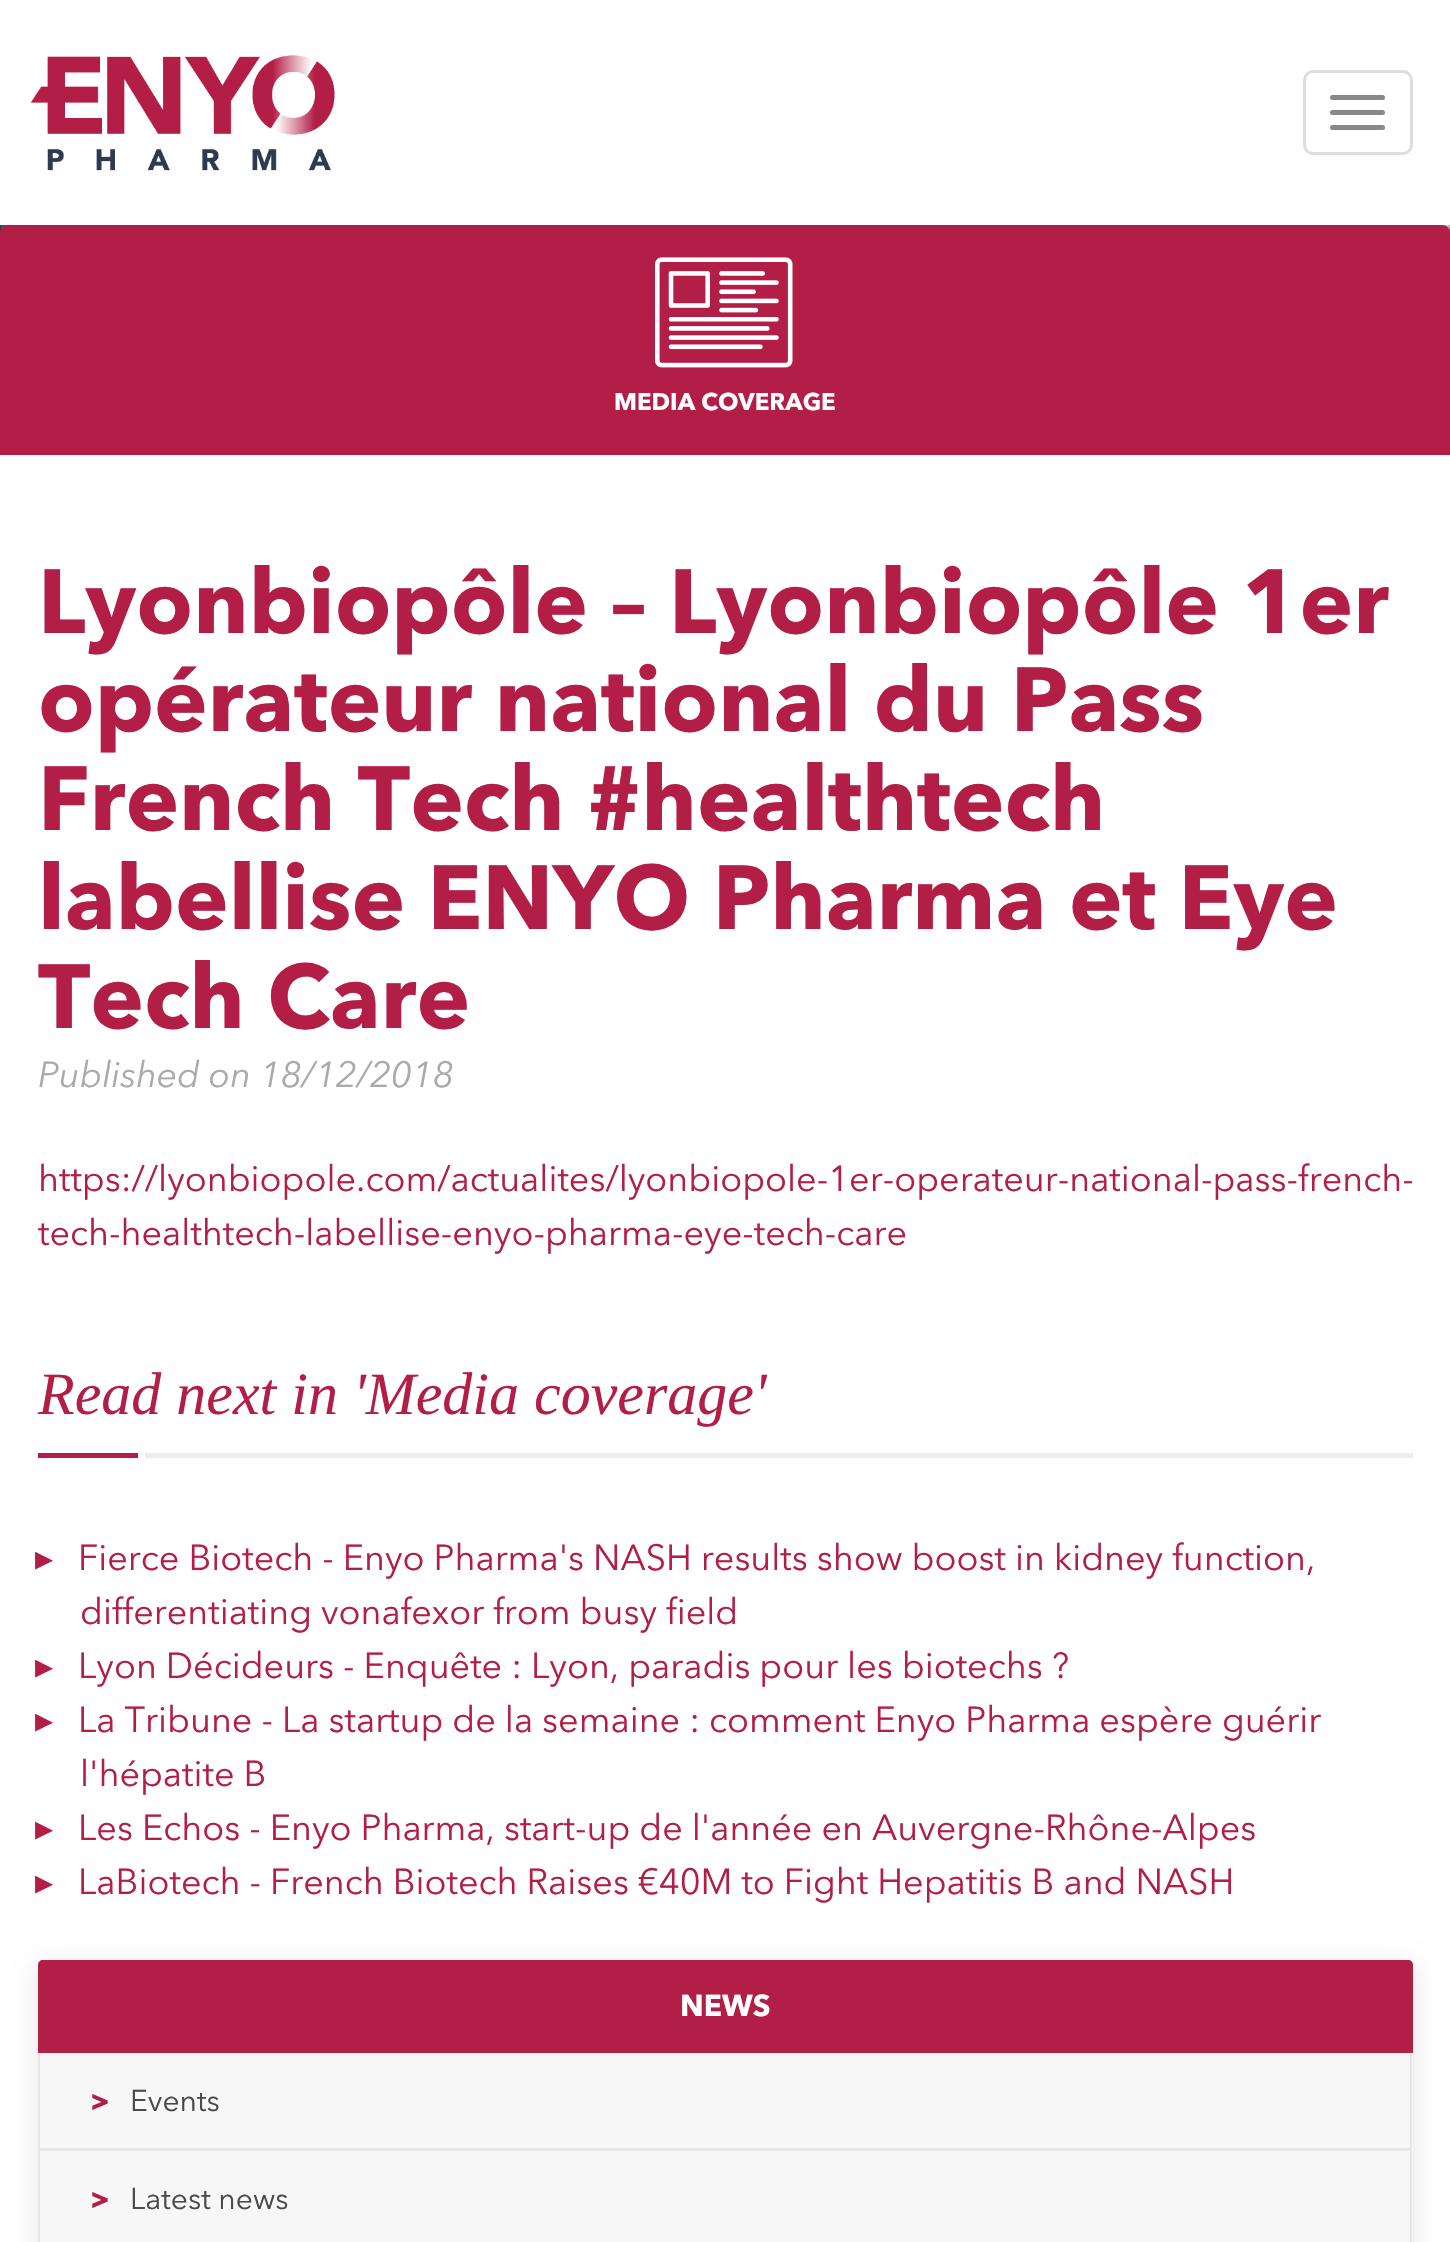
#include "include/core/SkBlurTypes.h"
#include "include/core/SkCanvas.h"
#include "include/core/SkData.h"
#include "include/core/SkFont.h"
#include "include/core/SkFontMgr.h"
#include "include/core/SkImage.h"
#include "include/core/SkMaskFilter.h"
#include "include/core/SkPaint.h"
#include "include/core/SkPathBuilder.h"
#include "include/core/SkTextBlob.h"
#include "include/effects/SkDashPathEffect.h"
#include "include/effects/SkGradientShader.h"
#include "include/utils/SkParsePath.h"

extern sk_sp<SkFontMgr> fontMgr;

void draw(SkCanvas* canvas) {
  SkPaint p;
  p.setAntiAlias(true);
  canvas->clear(SK_ColorWHITE);
  canvas->drawImageRect(SkImages::DeferredFromEncodedData(SkData::MakeFromFileName("images/1.png")), SkRect::MakeLTRB(31, 55, 335, 171), SkSamplingOptions());
  p.setStyle(SkPaint::kStroke_Style);
  p.setStrokeWidth(3);
  p.setColor(SkColorSetRGB(221, 221, 221));
  canvas->drawRoundRect(SkRect::MakeLTRB(1304.5f, 71.5f, 1411.5f, 153.5f), 8.5f, 8.5f, p);
  p.setStyle(SkPaint::kFill_Style);
  p.setColor(SkColorSetRGB(136, 136, 136));
  canvas->drawRoundRect(SkRect::MakeLTRB(1330, 95, 1385, 100), 2.5f, 2.5f, p);
  canvas->drawRoundRect(SkRect::MakeLTRB(1330, 110, 1385, 115), 2.5f, 2.5f, p);
  canvas->drawRoundRect(SkRect::MakeLTRB(1330, 125, 1385, 130), 2.5f, 2.5f, p);
  canvas->drawImageRect(SkImages::DeferredFromEncodedData(SkData::MakeFromFileName("images/2.png")), SkRect::MakeLTRB(0, 225, 1450, 233), SkSamplingOptions());
  p.setColor(SkColorSetRGB(179, 30, 71));
  canvas->drawPath(SkPathBuilder().moveTo(8, 225).lineTo(1442, 225).cubicTo(1446.5f, 225, 1450, 228.5f, 1450, 233).lineTo(1450, 455).lineTo(0, 455).lineTo(0, 233).cubicTo(0, 228.5f, 3.5f, 225, 8, 225).close().detach(), p);
  canvas->drawImageRect(SkImages::DeferredFromEncodedData(SkData::MakeFromFileName("images/3.png")), SkRect::MakeLTRB(655, 257, 793, 368), SkSamplingOptions());
  p.setColor(SkColorSetRGB(237, 237, 237));
  canvas->drawRect(SkRect::MakeLTRB(145, 1453, 1413, 1458), p);
  p.setColor(SkColorSetRGB(179, 30, 71));
  canvas->drawRect(SkRect::MakeLTRB(38, 1453, 138, 1458), p);
  p.setColor(SkColorSetARGB(26, 0, 0, 0));
  p.setMaskFilter(SkMaskFilter::MakeBlur(kNormal_SkBlurStyle, 12.5f));
  canvas->drawRoundRect(SkRect::MakeLTRB(38, 1965, 1413, 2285), 5, 5, p);
  p.setMaskFilter(nullptr);
  p.setColor(SkColorSetRGB(179, 30, 71));
  canvas->drawPath(SkPathBuilder().moveTo(43, 1960).lineTo(1408, 1960).cubicTo(1411, 1960, 1413, 1962, 1413, 1965).lineTo(1413, 2053).lineTo(38, 2053).lineTo(38, 1965).cubicTo(38, 1962, 40, 1960, 43, 1960).close().detach(), p);
  p.setColor(SkColorSetRGB(247, 247, 247));
  canvas->drawRect(SkRect::MakeLTRB(38, 2053, 1413, 2242), p);
  p.setColor(SkColorSetARGB(43, 150, 150, 150));
  canvas->drawPath(SkPathBuilder().moveTo(1412, 2052).lineTo(1412, 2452).lineTo(1410, 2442).lineTo(1410, 2052).close().detach(), p);
  canvas->drawPath(SkPathBuilder().moveTo(38, 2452).lineTo(38, 2052).lineTo(40, 2052).lineTo(40, 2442).close().detach(), p);
  p.setColor(SkColorSetRGB(231, 231, 231));
  canvas->drawRect(SkRect::MakeLTRB(40, 2148, 1410, 2151), p);
  SkFont font1(fontMgr->matchFamilyStyle("Avenir Next", SkFontStyle::Bold()), 24);
  font1.setSubpixel(true);
  p.setColor(SK_ColorWHITE);
  canvas->drawString("MEDIA COVERAGE", 614, 410, font1, p);
  SkFont font2(fontMgr->matchFamilyStyle("Avenir Next", SkFontStyle::Bold()), 90);
  font2.setSubpixel(true);
  p.setColor(SkColorSetRGB(179, 30, 71));
  canvas->drawString("Lyonbiopôle – Lyonbiopôle 1er", 38, 633, font2, p);
  canvas->drawString("opérateur national du Pass", 38, 731, font2, p);
  canvas->drawString("French Tech #healthtech", 38, 830, font2, p);
  canvas->drawString("labellise ENYO Pharma et Eye", 38, 929, font2, p);
  canvas->drawString("Tech Care", 38, 1028, font2, p);
  SkFont font3(fontMgr->matchFamilyStyle("Avenir Next", SkFontStyle::Italic()), 36);
  font3.setSubpixel(true);
  p.setColor(SkColorSetRGB(170, 170, 170));
  canvas->drawString("Published on 18/12/2018", 38, 1087, font3, p);
  SkFont font4(fontMgr->matchFamilyStyle("Avenir Next", SkFontStyle::Normal()), 36);
  font4.setSubpixel(true);
  p.setColor(SkColorSetRGB(179, 30, 71));
  canvas->drawString("https://lyonbiopole.com/actualites/lyonbiopole-1er-operateur-national-pass-french-", 38, 1191, font4, p);
  canvas->drawString("tech-healthtech-labellise-enyo-pharma-eye-tech-care", 38, 1245, font4, p);
  SkFont font5(fontMgr->matchFamilyStyle("Liberation Serif", SkFontStyle::Italic()), 60);
  font5.setSubpixel(true);
  canvas->drawString("Read next in 'Media coverage'", 38, 1414, font5, p);
  SkFont font6(fontMgr->matchFamilyStyle("DejaVu Sans", SkFontStyle::Normal()), 36);
  font6.setSubpixel(true);
  canvas->drawString("▸", 35, 1570, font6, p);
  canvas->drawString("Fierce Biotech - Enyo Pharma's NASH results show boost in kidney function,", 78, 1570, font4, p);
  canvas->drawString("differentiating vonafexor from busy field", 80, 1624, font4, p);
  canvas->drawString("▸", 35, 1678, font6, p);
  canvas->drawString("Lyon Décideurs - Enquête : Lyon, paradis pour les biotechs ?", 78, 1678, font4, p);
  canvas->drawString("▸", 35, 1732, font6, p);
  canvas->drawString("La Tribune - La startup de la semaine : comment Enyo Pharma espère guérir", 78, 1732, font4, p);
  canvas->drawString("l'hépatite B", 80, 1786, font4, p);
  canvas->drawString("▸", 35, 1840, font6, p);
  canvas->drawString("Les Echos - Enyo Pharma, start-up de l'année en Auvergne-Rhône-Alpes", 78, 1840, font4, p);
  canvas->drawString("▸", 35, 1894, font6, p);
  canvas->drawString("LaBiotech - French Biotech Raises €40M to Fight Hepatitis B and NASH", 78, 1894, font4, p);
  SkFont font7(fontMgr->matchFamilyStyle("Avenir Next", SkFontStyle::Bold()), 30);
  font7.setSubpixel(true);
  p.setColor(SK_ColorWHITE);
  canvas->drawString("NEWS", 680, 2016, font7, p);
  p.setColor(SkColorSetRGB(179, 30, 71));
  canvas->drawString(">", 90, 2111, font7, p);
  SkFont font8(fontMgr->matchFamilyStyle("Avenir Next", SkFontStyle::Normal()), 30);
  font8.setSubpixel(true);
  p.setColor(SkColorSetRGB(74, 74, 74));
  canvas->drawString("Events", 130, 2111, font8, p);
  p.setColor(SkColorSetRGB(179, 30, 71));
  canvas->drawString(">", 90, 2209, font7, p);
  p.setColor(SkColorSetRGB(74, 74, 74));
  canvas->drawString("Latest news", 130, 2209, font8, p);
}
